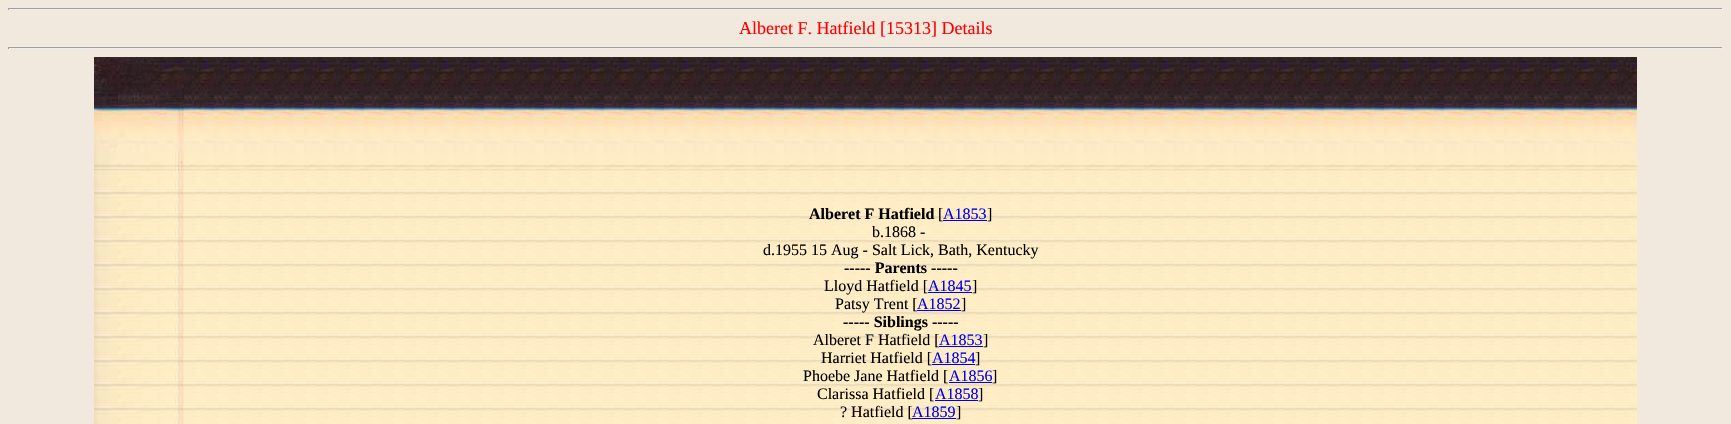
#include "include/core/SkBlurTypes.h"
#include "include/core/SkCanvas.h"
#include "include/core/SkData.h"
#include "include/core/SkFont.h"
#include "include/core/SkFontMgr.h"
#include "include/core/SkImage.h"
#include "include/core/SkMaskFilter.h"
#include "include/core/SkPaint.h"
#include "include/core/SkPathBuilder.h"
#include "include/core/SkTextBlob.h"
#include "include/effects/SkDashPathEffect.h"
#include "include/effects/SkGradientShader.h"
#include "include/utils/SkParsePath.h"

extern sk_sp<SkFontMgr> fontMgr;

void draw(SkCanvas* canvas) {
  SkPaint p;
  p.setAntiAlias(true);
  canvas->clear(SkColorSetRGB(241, 232, 222));
  p.setColor(SkColorSetRGB(159, 159, 159));
  canvas->drawRect(SkRect::MakeLTRB(8, 8, 1723, 9), p);
  p.setColor(SkColorSetRGB(238, 238, 238));
  canvas->drawRect(SkRect::MakeLTRB(1722, 8, 1723, 10), p);
  canvas->drawRect(SkRect::MakeLTRB(8, 9, 1723, 10), p);
  p.setColor(SkColorSetRGB(159, 159, 159));
  canvas->drawRect(SkRect::MakeLTRB(8, 8, 9, 10), p);
  canvas->drawRect(SkRect::MakeLTRB(8, 47, 1723, 48), p);
  p.setColor(SkColorSetRGB(238, 238, 238));
  canvas->drawRect(SkRect::MakeLTRB(1722, 47, 1723, 49), p);
  canvas->drawRect(SkRect::MakeLTRB(8, 48, 1723, 49), p);
  p.setColor(SkColorSetRGB(159, 159, 159));
  canvas->drawRect(SkRect::MakeLTRB(8, 47, 9, 49), p);
  canvas->drawImageRect(SkImages::DeferredFromEncodedData(SkData::MakeFromFileName("images/1.png")), SkRect::MakeLTRB(94, 57, 184, 169), SkSamplingOptions());
  canvas->drawImageRect(SkImages::DeferredFromEncodedData(SkData::MakeFromFileName("images/2.png")), SkRect::MakeLTRB(184, 57, 1617, 169), SkSamplingOptions());
  canvas->drawImageRect(SkImages::DeferredFromEncodedData(SkData::MakeFromFileName("images/3.png")), SkRect::MakeLTRB(1617, 57, 1637, 169), SkSamplingOptions());
  canvas->drawImageRect(SkImages::DeferredFromEncodedData(SkData::MakeFromFileName("images/4.png")), SkRect::MakeLTRB(94, 169, 184, 424), SkSamplingOptions());
  canvas->drawImageRect(SkImages::DeferredFromEncodedData(SkData::MakeFromFileName("images/5.png")), SkRect::MakeLTRB(184, 169, 1617, 424), SkSamplingOptions());
  p.setColor(SkColorSetRGB(0, 0, 238));
  canvas->drawRect(SkRect::MakeLTRB(943, 220, 987, 221), p);
  canvas->drawRect(SkRect::MakeLTRB(928, 292, 972, 293), p);
  canvas->drawRect(SkRect::MakeLTRB(917, 310, 961, 311), p);
  canvas->drawRect(SkRect::MakeLTRB(939, 346, 983, 347), p);
  canvas->drawRect(SkRect::MakeLTRB(932, 364, 975, 365), p);
  canvas->drawRect(SkRect::MakeLTRB(949, 382, 992, 383), p);
  canvas->drawRect(SkRect::MakeLTRB(935, 400, 978, 401), p);
  canvas->drawRect(SkRect::MakeLTRB(912, 418, 956, 419), p);
  canvas->drawImageRect(SkImages::DeferredFromEncodedData(SkData::MakeFromFileName("images/6.png")), SkRect::MakeLTRB(1617, 169, 1637, 424), SkSamplingOptions());
  SkFont font1(fontMgr->matchFamilyStyle("Liberation Serif", SkFontStyle::Normal()), 18);
  font1.setSubpixel(true);
  p.setColor(SkColorSetRGB(255, 0, 0));
  canvas->drawString("Alberet F. Hatfield [15313] Details", 739, 34, font1, p);
  SkFont font2(fontMgr->matchFamilyStyle("Liberation Serif", SkFontStyle::Bold()), 16);
  font2.setSubpixel(true);
  p.setColor(SK_ColorBLACK);
  canvas->drawString("Alberet F Hatfield", 809, 219, font2, p);
  SkFont font3(fontMgr->matchFamilyStyle("Liberation Serif", SkFontStyle::Normal()), 16);
  font3.setSubpixel(true);
  canvas->drawString("[", 938, 219, font3, p);
  p.setColor(SkColorSetRGB(0, 0, 238));
  canvas->drawString("A1853", 943, 219, font3, p);
  p.setColor(SK_ColorBLACK);
  canvas->drawString("]", 987, 219, font3, p);
  canvas->drawString("b.1868 -", 872, 237, font3, p);
  canvas->drawString("d.1955 15 Aug - Salt Lick, Bath, Kentucky", 763, 255, font3, p);
  canvas->drawString("----- Parents -----", 844, 273, font2, p);
  canvas->drawString("Lloyd Hatfield [", 824, 291, font3, p);
  p.setColor(SkColorSetRGB(0, 0, 238));
  canvas->drawString("A1845", 928, 291, font3, p);
  p.setColor(SK_ColorBLACK);
  canvas->drawString("]", 972, 291, font3, p);
  canvas->drawString("Patsy Trent [", 835, 309, font3, p);
  p.setColor(SkColorSetRGB(0, 0, 238));
  canvas->drawString("A1852", 917, 309, font3, p);
  p.setColor(SK_ColorBLACK);
  canvas->drawString("]", 961, 309, font3, p);
  canvas->drawString("----- Siblings -----", 843, 327, font2, p);
  canvas->drawString("Alberet F Hatfield [", 813, 345, font3, p);
  p.setColor(SkColorSetRGB(0, 0, 238));
  canvas->drawString("A1853", 939, 345, font3, p);
  p.setColor(SK_ColorBLACK);
  canvas->drawString("]", 983, 345, font3, p);
  canvas->drawString("Harriet Hatfield [", 821, 363, font3, p);
  p.setColor(SkColorSetRGB(0, 0, 238));
  canvas->drawString("A1854", 932, 363, font3, p);
  p.setColor(SK_ColorBLACK);
  canvas->drawString("]", 975, 363, font3, p);
  canvas->drawString("Phoebe Jane Hatfield [", 803, 381, font3, p);
  p.setColor(SkColorSetRGB(0, 0, 238));
  canvas->drawString("A1856", 949, 381, font3, p);
  p.setColor(SK_ColorBLACK);
  canvas->drawString("]", 992, 381, font3, p);
  canvas->drawString("Clarissa Hatfield [", 817, 399, font3, p);
  p.setColor(SkColorSetRGB(0, 0, 238));
  canvas->drawString("A1858", 935, 399, font3, p);
  p.setColor(SK_ColorBLACK);
  canvas->drawString("]", 978, 399, font3, p);
  canvas->drawString("? Hatfield [", 840, 417, font3, p);
  p.setColor(SkColorSetRGB(0, 0, 238));
  canvas->drawString("A1859", 912, 417, font3, p);
  p.setColor(SK_ColorBLACK);
  canvas->drawString("]", 956, 417, font3, p);
}
